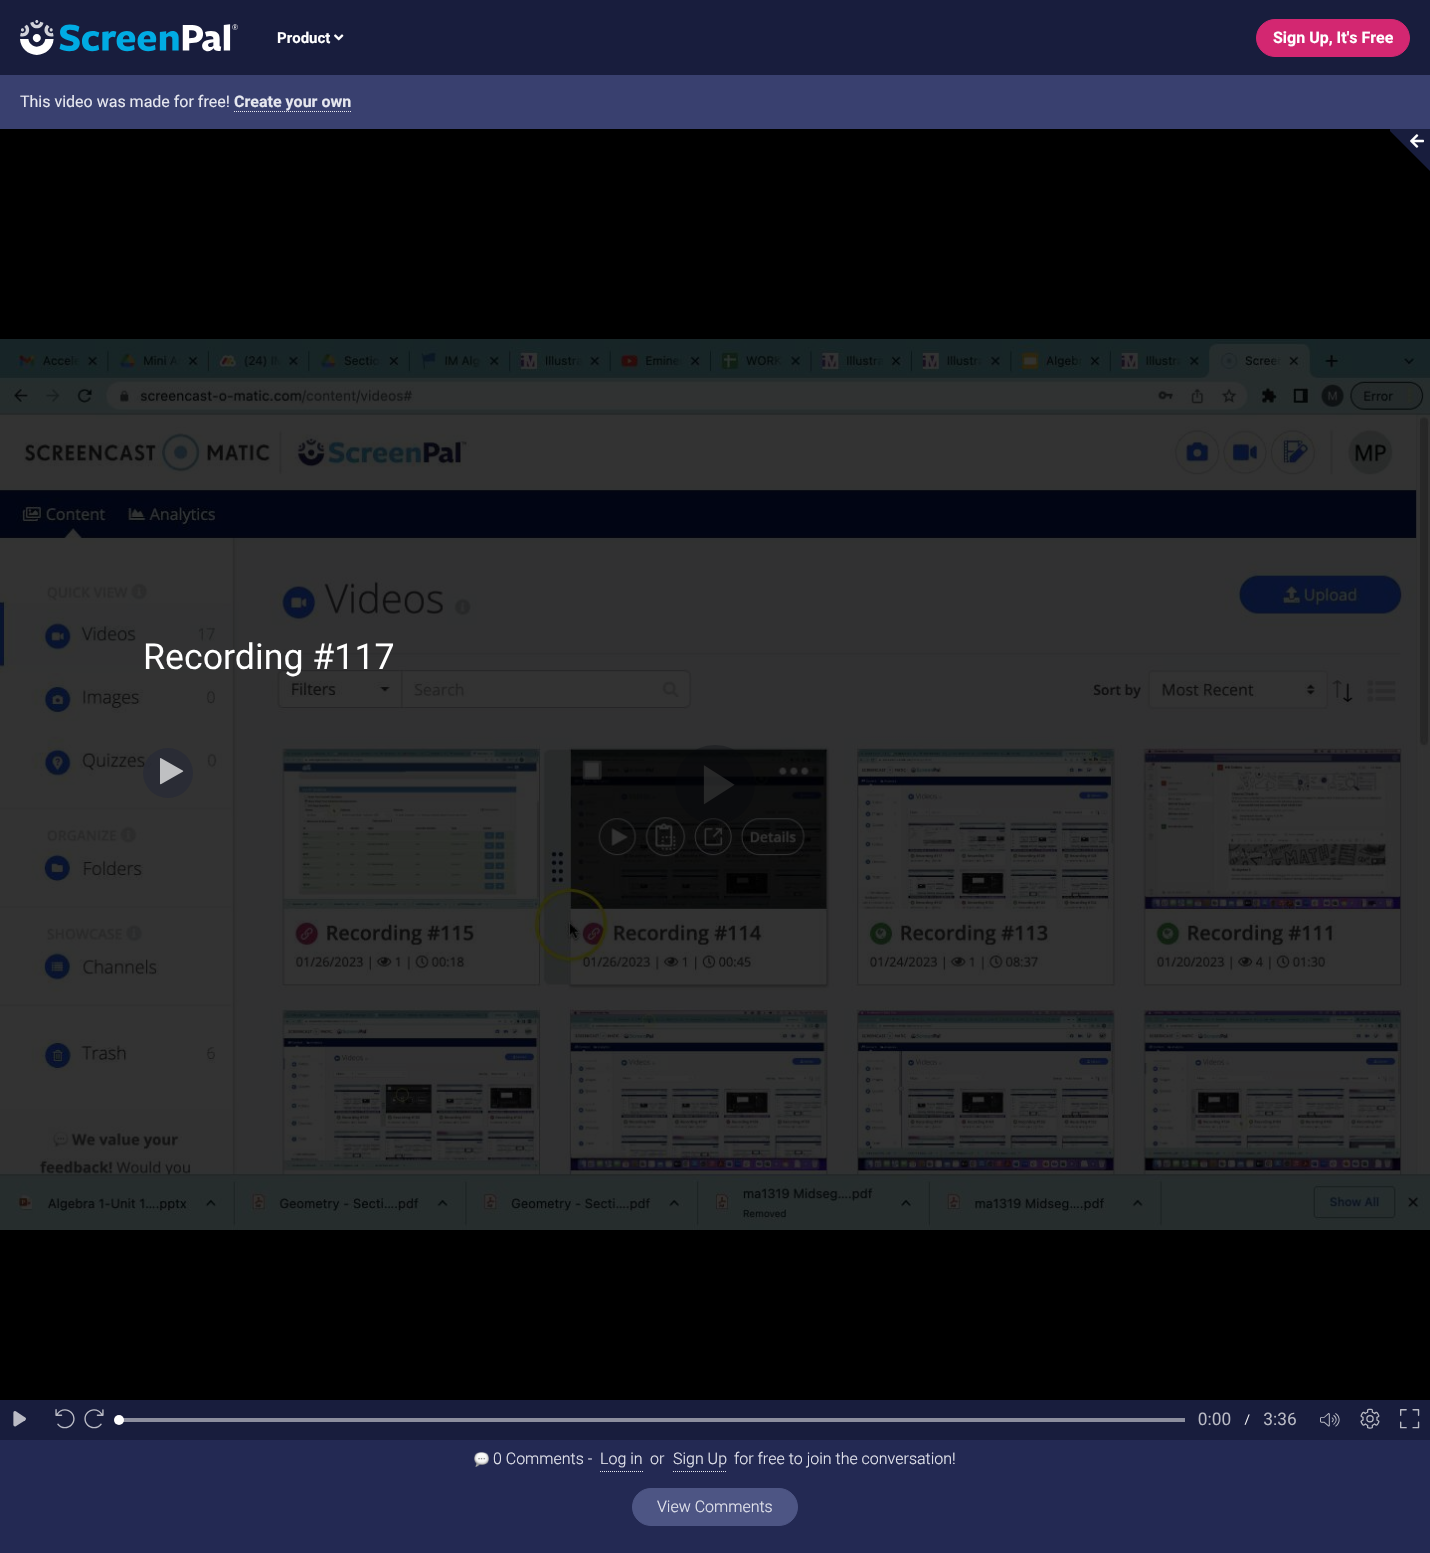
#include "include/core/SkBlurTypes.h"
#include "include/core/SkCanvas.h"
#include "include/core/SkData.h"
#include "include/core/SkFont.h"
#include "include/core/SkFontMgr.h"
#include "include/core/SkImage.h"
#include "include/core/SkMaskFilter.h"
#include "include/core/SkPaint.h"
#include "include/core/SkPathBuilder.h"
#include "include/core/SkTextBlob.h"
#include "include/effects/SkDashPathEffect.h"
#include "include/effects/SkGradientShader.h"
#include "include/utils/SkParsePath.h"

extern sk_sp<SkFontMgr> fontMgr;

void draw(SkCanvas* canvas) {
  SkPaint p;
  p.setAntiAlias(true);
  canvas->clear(SkColorSetRGB(35, 41, 83));
  p.setColor(SkColorSetRGB(24, 29, 61));
  canvas->drawRect(SkRect::MakeLTRB(0, 0, 1430, 75), p);
  canvas->drawImageRect(SkImages::DeferredFromEncodedData(SkData::MakeFromFileName("images/1.png")), SkRect::MakeLTRB(20, 20, 238, 55), SkSamplingOptions());
  canvas->drawImageRect(SkImages::DeferredFromEncodedData(SkData::MakeFromFileName("images/2.png")), SkRect::MakeLTRB(334, 34, 344, 41), SkSamplingOptions());
  p.setColor(SkColorSetRGB(211, 39, 113));
  canvas->drawRoundRect(SkRect::MakeLTRB(1256.5f, 19.5f, 1409.5f, 56.5f), 18.5f, 18.5f, p);
  p.setStyle(SkPaint::kStroke_Style);
  p.setStrokeWidth(1);
  canvas->drawRoundRect(SkRect::MakeLTRB(1256.5f, 19.5f, 1409.5f, 56.5f), 18.5f, 18.5f, p);
  p.setStyle(SkPaint::kFill_Style);
  p.setColor(SkColorSetRGB(57, 64, 111));
  canvas->drawRect(SkRect::MakeLTRB(0, 75, 1430, 129), p);
  p.setStyle(SkPaint::kStroke_Style);
  p.setColor(SkColorSetRGB(230, 231, 239));
  p.setPathEffect(SkDashPathEffect::Make({{1, 1}}, 0));
  canvas->drawPath(SkPathBuilder().moveTo(234, 111.5f).lineTo(351, 111.5f).detach(), p);
  p.setPathEffect(nullptr);
  canvas->drawImageRect(SkImages::DeferredFromEncodedData(SkData::MakeFromFileName("images/3.png")), SkRect::MakeLTRB(0, 129, 1430, 1440), SkSamplingOptions());
  p.setStyle(SkPaint::kFill_Style);
  p.setColor(SkColorSetRGB(24, 29, 61));
  canvas->drawPath(SkPathBuilder().moveTo(1430, 129).lineTo(1430, 171).lineTo(1390, 131).lineTo(1390, 129).close().detach(), p);
  canvas->drawImageRect(SkImages::DeferredFromEncodedData(SkData::MakeFromFileName("images/4.png")), SkRect::MakeLTRB(1410, 134, 1424, 148), SkSamplingOptions());
  canvas->drawImageRect(SkImages::DeferredFromEncodedData(SkData::MakeFromFileName("images/5.png")), SkRect::MakeLTRB(474, 1452, 489, 1467), SkSamplingOptions());
  p.setStyle(SkPaint::kStroke_Style);
  p.setColor(SkColorSetRGB(230, 231, 239));
  p.setPathEffect(SkDashPathEffect::Make({{1, 1}}, 0));
  canvas->drawPath(SkPathBuilder().moveTo(600, 1471.5f).lineTo(643, 1471.5f).detach(), p);
  p.setPathEffect(nullptr);
  p.setPathEffect(SkDashPathEffect::Make({{1, 1}}, 0));
  canvas->drawPath(SkPathBuilder().moveTo(673, 1471.5f).lineTo(727, 1471.5f).detach(), p);
  p.setPathEffect(nullptr);
  p.setStyle(SkPaint::kFill_Style);
  p.setColor(SkColorSetRGB(77, 85, 132));
  canvas->drawRoundRect(SkRect::MakeLTRB(632.5f, 1488.5f, 797.5f, 1525.5f), 18.5f, 18.5f, p);
  p.setStyle(SkPaint::kStroke_Style);
  canvas->drawRoundRect(SkRect::MakeLTRB(632.5f, 1488.5f, 797.5f, 1525.5f), 18.5f, 18.5f, p);
  SkFont font1(fontMgr->matchFamilyStyle("Roboto", SkFontStyle::Bold()), 15);
  font1.setSubpixel(true);
  p.setStyle(SkPaint::kFill_Style);
  p.setColor(SK_ColorWHITE);
  canvas->drawString("Product", 277, 43, font1, p);
  SkFont font2(fontMgr->matchFamilyStyle("Roboto", SkFontStyle::Bold()), 16);
  font2.setSubpixel(true);
  canvas->drawString("Sign Up, It's Free", 1273, 43, font2, p);
  SkFont font3(fontMgr->matchFamilyStyle("Roboto", SkFontStyle::Normal()), 16);
  font3.setSubpixel(true);
  p.setColor(SkColorSetRGB(230, 231, 239));
  canvas->drawString("This video was made for free!", 20, 107, font3, p);
  canvas->drawString("Create your own", 234, 107, font2, p);
  SkFont font4(fontMgr->matchFamilyStyle("Roboto", SkFontStyle(300, SkFontStyle::kNormal_Width, SkFontStyle::kUpright_Slant)), 16);
  font4.setSubpixel(true);
  canvas->drawString("0 Comments -", 493, 1464, font4, p);
  canvas->drawString("Log in", 600, 1464, font4, p);
  canvas->drawString("or", 650, 1464, font4, p);
  canvas->drawString("Sign Up", 673, 1464, font4, p);
  canvas->drawString("for free to join the conversation!", 734, 1464, font4, p);
  canvas->drawString("View Comments", 657, 1512, font4, p);
}
